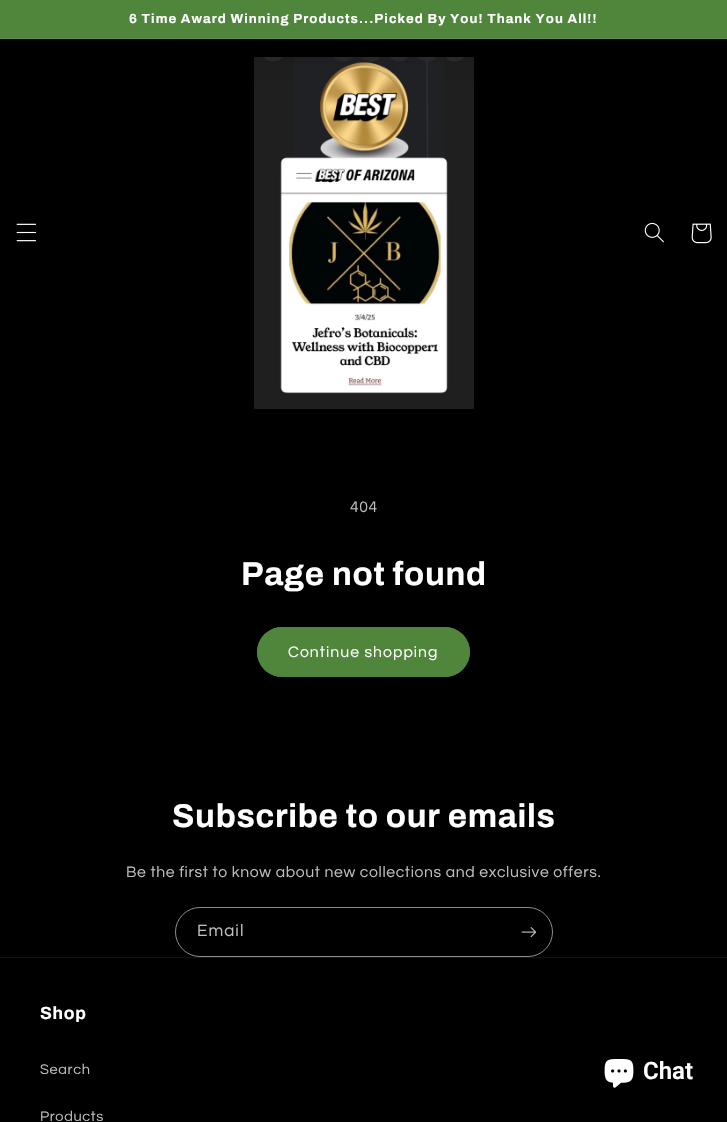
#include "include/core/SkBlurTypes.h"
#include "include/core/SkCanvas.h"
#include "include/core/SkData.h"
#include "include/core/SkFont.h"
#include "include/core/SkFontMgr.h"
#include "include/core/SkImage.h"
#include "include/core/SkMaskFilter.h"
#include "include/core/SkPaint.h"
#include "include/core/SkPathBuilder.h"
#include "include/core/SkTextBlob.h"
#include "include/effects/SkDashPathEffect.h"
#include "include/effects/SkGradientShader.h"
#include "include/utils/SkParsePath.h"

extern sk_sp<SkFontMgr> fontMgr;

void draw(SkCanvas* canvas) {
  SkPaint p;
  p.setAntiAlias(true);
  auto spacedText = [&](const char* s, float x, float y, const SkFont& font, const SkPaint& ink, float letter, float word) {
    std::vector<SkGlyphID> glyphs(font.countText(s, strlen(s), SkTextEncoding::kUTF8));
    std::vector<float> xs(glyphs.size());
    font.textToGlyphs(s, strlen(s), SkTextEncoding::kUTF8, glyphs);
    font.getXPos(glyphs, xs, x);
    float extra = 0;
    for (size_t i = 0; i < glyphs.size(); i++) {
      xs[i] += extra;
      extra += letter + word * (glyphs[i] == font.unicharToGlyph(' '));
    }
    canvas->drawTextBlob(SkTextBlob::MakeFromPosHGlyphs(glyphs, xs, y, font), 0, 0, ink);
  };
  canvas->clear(SK_ColorBLACK);
  p.setColor(SkColorSetRGB(80, 133, 60));
  canvas->drawRect(SkRect::MakeLTRB(0, 0, 727, 38), p);
  p.setColor(SkColorSetRGB(94, 143, 76));
  canvas->drawRect(SkRect::MakeLTRB(0, 38, 727, 39), p);
  canvas->drawImageRect(SkImages::DeferredFromEncodedData(SkData::MakeFromFileName("images/1.png")), SkRect::MakeLTRB(16, 223, 36, 242), SkSamplingOptions());
  canvas->drawImageRect(SkImages::DeferredFromEncodedData(SkData::MakeFromFileName("images/2.png")), SkRect::MakeLTRB(254, 57, 474, 409), SkSamplingOptions());
  canvas->drawImageRect(SkImages::DeferredFromEncodedData(SkData::MakeFromFileName("images/3.png")), SkRect::MakeLTRB(644, 222, 664, 243), SkSamplingOptions());
  canvas->drawImageRect(SkImages::DeferredFromEncodedData(SkData::MakeFromFileName("images/4.png")), SkRect::MakeLTRB(691, 223, 712, 244), SkSamplingOptions());
  p.setColor(SkColorSetRGB(80, 133, 60));
  canvas->drawRoundRect(SkRect::MakeLTRB(257, 627, 470, 677), 25, 25, p);
  p.setStyle(SkPaint::kStroke_Style);
  p.setStrokeWidth(1);
  canvas->drawRoundRect(SkRect::MakeLTRB(257.5f, 627.5f, 469.5f, 676.5f), 24.5f, 24.5f, p);
  p.setColor(SkColorSetRGB(140, 140, 140));
  canvas->drawRoundRect(SkRect::MakeLTRB(175.5f, 907.5f, 552.5f, 956.5f), 24.5f, 24.5f, p);
  canvas->drawImageRect(SkImages::DeferredFromEncodedData(SkData::MakeFromFileName("images/5.png")), SkRect::MakeLTRB(521, 927, 536, 938), SkSamplingOptions());
  p.setStyle(SkPaint::kFill_Style);
  p.setColor(SkColorSetRGB(20, 20, 20));
  canvas->drawRect(SkRect::MakeLTRB(0, 957, 727, 958), p);
  canvas->drawImageRect(SkImages::DeferredFromEncodedData(SkData::MakeFromFileName("images/6.png")), SkRect::MakeLTRB(604, 1059, 634, 1088), SkSamplingOptions());
  SkFont font1(fontMgr->matchFamilyStyle("Archivo", SkFontStyle::Bold()), 13.2f);
  font1.setSubpixel(true);
  p.setColor(SK_ColorWHITE);
  spacedText("6 Time Award Winning Products...Picked By You! Thank You All!!", 129, 23, font1, p, 1.05f, 0);
  SkFont font2(fontMgr->matchFamilyStyle("Questrial", SkFontStyle::Normal()), 15.75f);
  font2.setSubpixel(true);
  p.setColor(SkColorSetRGB(191, 191, 191));
  spacedText("404", 350, 512, font2, p, 0.63f, 0);
  SkFont font3(fontMgr->matchFamilyStyle("Archivo", SkFontStyle::Bold()), 33);
  font3.setSubpixel(true);
  p.setColor(SK_ColorWHITE);
  spacedText("Page not found", 241, 585, font3, p, 0.7f, 0);
  spacedText("Continue shopping", 288, 657, font2, p, 1.05f, 0);
  spacedText("Subscribe to our emails", 172, 827, font3, p, 0.7f, 0);
  p.setColor(SkColorSetRGB(191, 191, 191));
  spacedText("Be the first to know about new collections and exclusive offers.", 126, 877, font2, p, 0.63f, 0);
  SkFont font4(fontMgr->matchFamilyStyle("Questrial", SkFontStyle::Normal()), 17);
  font4.setSubpixel(true);
  spacedText("Email", 197, 936, font4, p, 1.05f, 0);
  SkFont font5(fontMgr->matchFamilyStyle("Archivo", SkFontStyle::Bold()), 17.5f);
  font5.setSubpixel(true);
  p.setColor(SK_ColorWHITE);
  spacedText("Shop", 40, 1019, font5, p, 0.7f, 0);
  SkFont font6(fontMgr->matchFamilyStyle("Questrial", SkFontStyle::Normal()), 14.5f);
  font6.setSubpixel(true);
  p.setColor(SkColorSetRGB(191, 191, 191));
  spacedText("Search", 40, 1074, font6, p, 0.63f, 0);
  spacedText("Products", 40, 1121, font6, p, 0.63f, 0);
  SkFont font7(fontMgr->matchFamilyStyle("Roboto", SkFontStyle(600, SkFontStyle::kNormal_Width, SkFontStyle::kUpright_Slant)), 24);
  font7.setSubpixel(true);
  p.setColor(SK_ColorWHITE);
  canvas->drawString("Chat", 643, 1079, font7, p);
}
